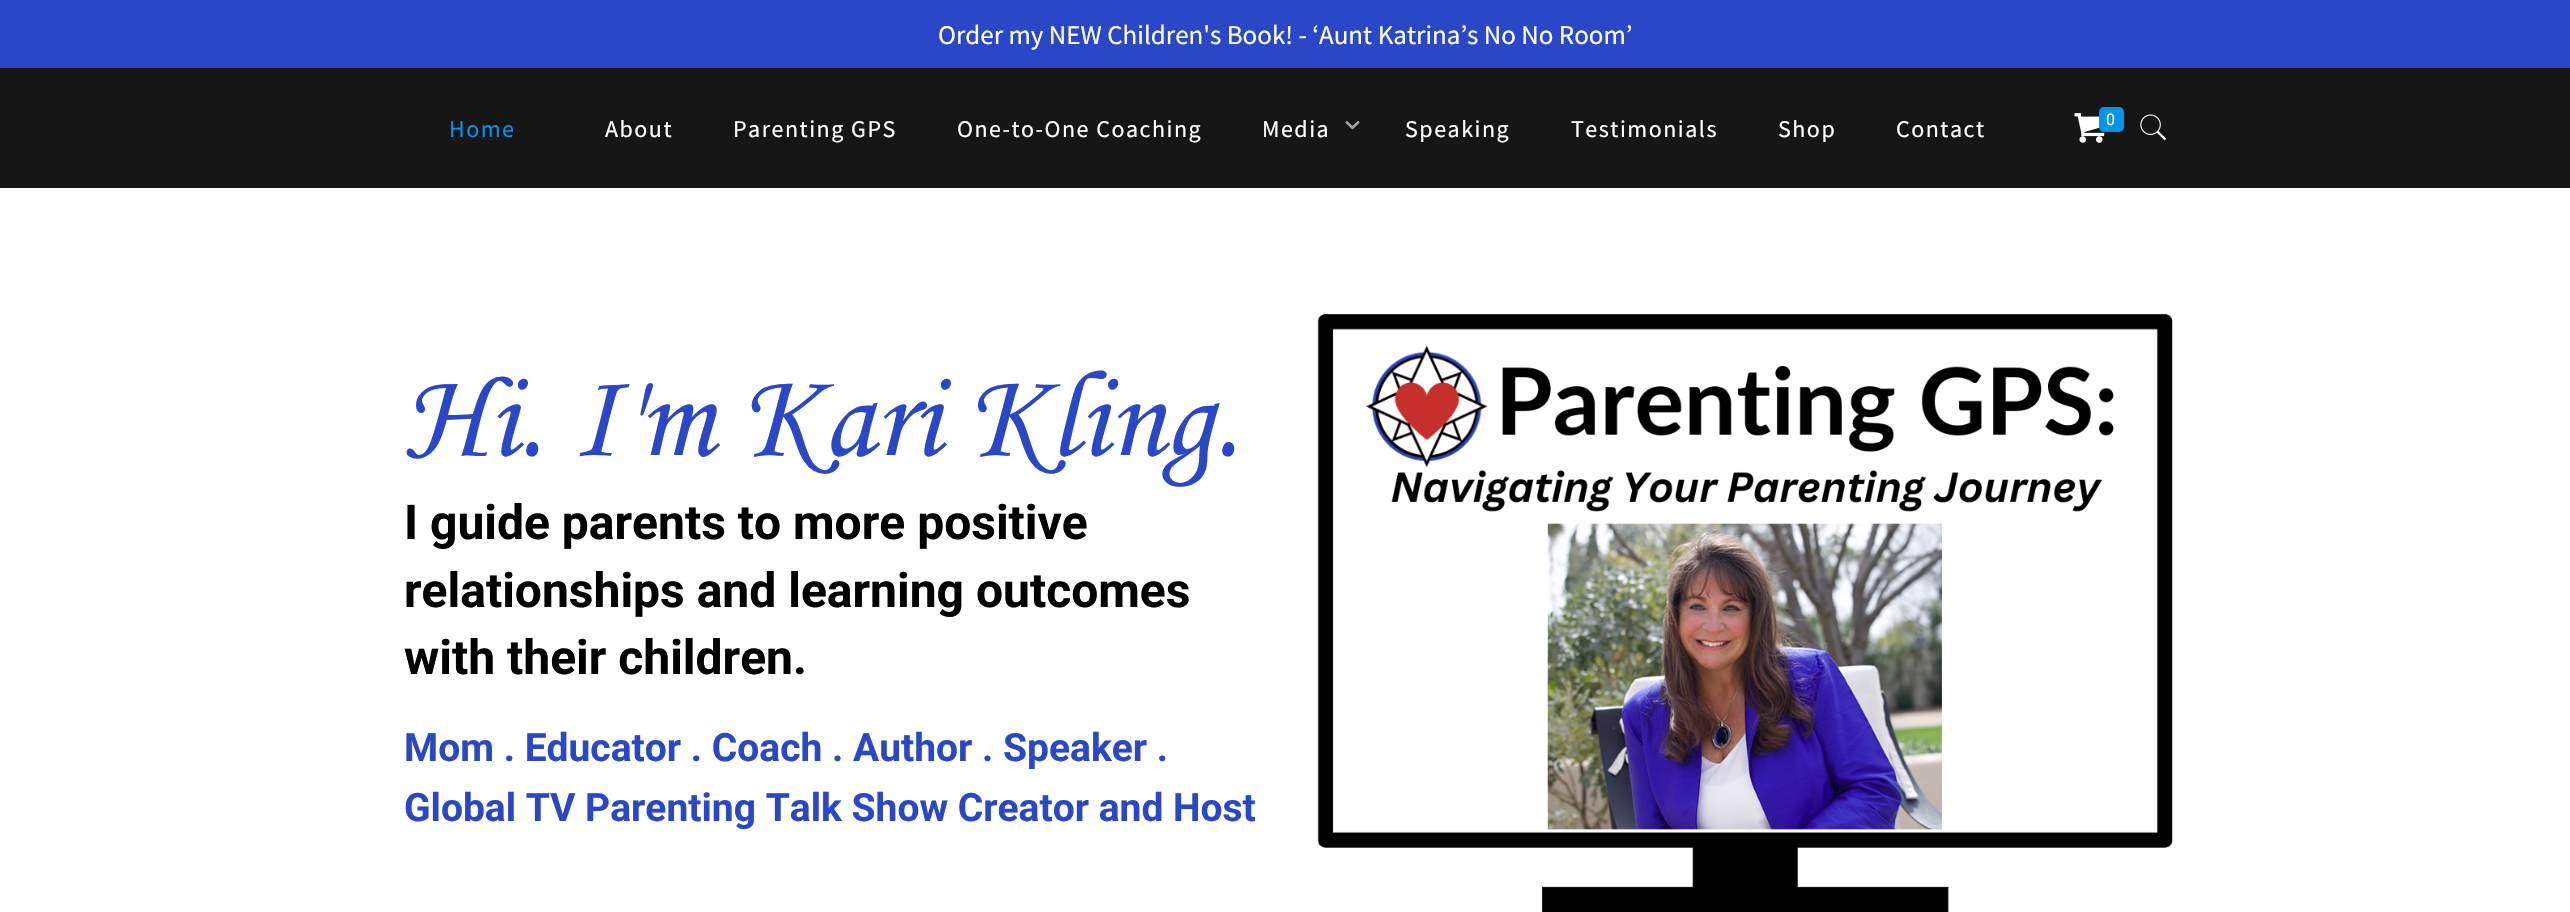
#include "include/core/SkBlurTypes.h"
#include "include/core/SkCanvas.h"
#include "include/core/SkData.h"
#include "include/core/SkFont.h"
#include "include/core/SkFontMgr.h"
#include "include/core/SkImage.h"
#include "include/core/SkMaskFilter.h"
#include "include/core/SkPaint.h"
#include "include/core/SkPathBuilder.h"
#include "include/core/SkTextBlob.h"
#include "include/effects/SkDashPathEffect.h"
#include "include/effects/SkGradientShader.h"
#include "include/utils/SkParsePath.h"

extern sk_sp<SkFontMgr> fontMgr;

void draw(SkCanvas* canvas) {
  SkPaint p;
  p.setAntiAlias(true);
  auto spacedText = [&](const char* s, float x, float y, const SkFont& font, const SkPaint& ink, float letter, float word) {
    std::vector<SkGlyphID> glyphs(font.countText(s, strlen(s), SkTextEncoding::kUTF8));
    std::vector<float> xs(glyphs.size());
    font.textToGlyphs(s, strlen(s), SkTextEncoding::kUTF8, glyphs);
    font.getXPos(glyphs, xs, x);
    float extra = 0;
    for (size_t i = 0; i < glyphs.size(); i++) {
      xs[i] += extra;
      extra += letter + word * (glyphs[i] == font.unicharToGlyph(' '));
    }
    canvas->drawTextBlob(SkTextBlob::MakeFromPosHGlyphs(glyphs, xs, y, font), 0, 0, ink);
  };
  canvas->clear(SK_ColorWHITE);
  p.setColor(SkColorSetRGB(41, 71, 199));
  canvas->drawRect(SkRect::MakeLTRB(0, 0, 2570, 68), p);
  p.setColor(SkColorSetRGB(22, 22, 22));
  canvas->drawRect(SkRect::MakeLTRB(0, 68, 2570, 188), p);
  canvas->drawImageRect(SkImages::DeferredFromEncodedData(SkData::MakeFromFileName("images/1.png")), SkRect::MakeLTRB(1345, 121, 1360, 130), SkSamplingOptions());
  canvas->drawImageRect(SkImages::DeferredFromEncodedData(SkData::MakeFromFileName("images/2.png")), SkRect::MakeLTRB(2074, 113, 2105, 143), SkSamplingOptions());
  p.setColor(SkColorSetRGB(0, 149, 235));
  canvas->drawRoundRect(SkRect::MakeLTRB(2099, 107, 2124, 132), 5, 5, p);
  canvas->drawImageRect(SkImages::DeferredFromEncodedData(SkData::MakeFromFileName("images/3.png")), SkRect::MakeLTRB(2140, 114, 2167, 141), SkSamplingOptions());
  canvas->drawImageRect(SkImages::DeferredFromEncodedData(SkData::MakeFromFileName("images/4.png")), SkRect::MakeLTRB(1317, 314, 2173, 912), SkSamplingOptions());
  SkFont font1(fontMgr->matchFamilyStyle("Source Sans Pro", SkFontStyle::Normal()), 27);
  font1.setSubpixel(true);
  p.setColor(SK_ColorWHITE);
  canvas->drawString("Order my NEW Children's Book! - ‘Aunt Katrina’s No No Room’", 938, 44, font1, p);
  SkFont font2(fontMgr->matchFamilyStyle("Source Sans Pro", SkFontStyle::Normal()), 24);
  font2.setSubpixel(true);
  p.setColor(SkColorSetRGB(0, 149, 235));
  spacedText("Home", 449, 137, font2, p, 1.5f, 0);
  p.setColor(SK_ColorWHITE);
  spacedText("About", 605, 137, font2, p, 1.5f, 0);
  spacedText("Parenting GPS", 733, 137, font2, p, 1.5f, 0);
  spacedText("One-to-One Coaching", 957, 137, font2, p, 1.5f, 0);
  spacedText("Media", 1262, 137, font2, p, 1.5f, 0);
  spacedText("Speaking", 1405, 137, font2, p, 1.5f, 0);
  spacedText("Testimonials", 1571, 137, font2, p, 1.5f, 0);
  spacedText("Shop", 1778, 137, font2, p, 1.5f, 0);
  spacedText("Contact", 1896, 137, font2, p, 1.5f, 0);
  SkFont font3(fontMgr->matchFamilyStyle("Roboto", SkFontStyle::Normal()), 16);
  font3.setSubpixel(true);
  canvas->drawString("0", 2106, 125, font3, p);
  SkFont font4(fontMgr->matchFamilyStyle("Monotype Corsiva", SkFontStyle::Italic()), 123);
  font4.setSubpixel(true);
  p.setColor(SkColorSetRGB(41, 71, 199));
  canvas->drawString("Hi. I'm Kari Kling.", 404, 455, font4, p);
  SkFont font5(fontMgr->matchFamilyStyle("Roboto", SkFontStyle::Bold()), 48);
  font5.setSubpixel(true);
  p.setColor(SK_ColorBLACK);
  canvas->drawString("I guide parents to more positive", 404, 539, font5, p);
  canvas->drawString("relationships and learning outcomes", 404, 607, font5, p);
  canvas->drawString("with their children.", 404, 674, font5, p);
  SkFont font6(fontMgr->matchFamilyStyle("Roboto", SkFontStyle::Bold()), 39);
  font6.setSubpixel(true);
  p.setColor(SkColorSetRGB(41, 71, 199));
  canvas->drawString("Mom . Educator . Coach . Author . Speaker .", 404, 761, font6, p);
  canvas->drawString("Global TV Parenting Talk Show Creator and Host", 404, 821, font6, p);
}
